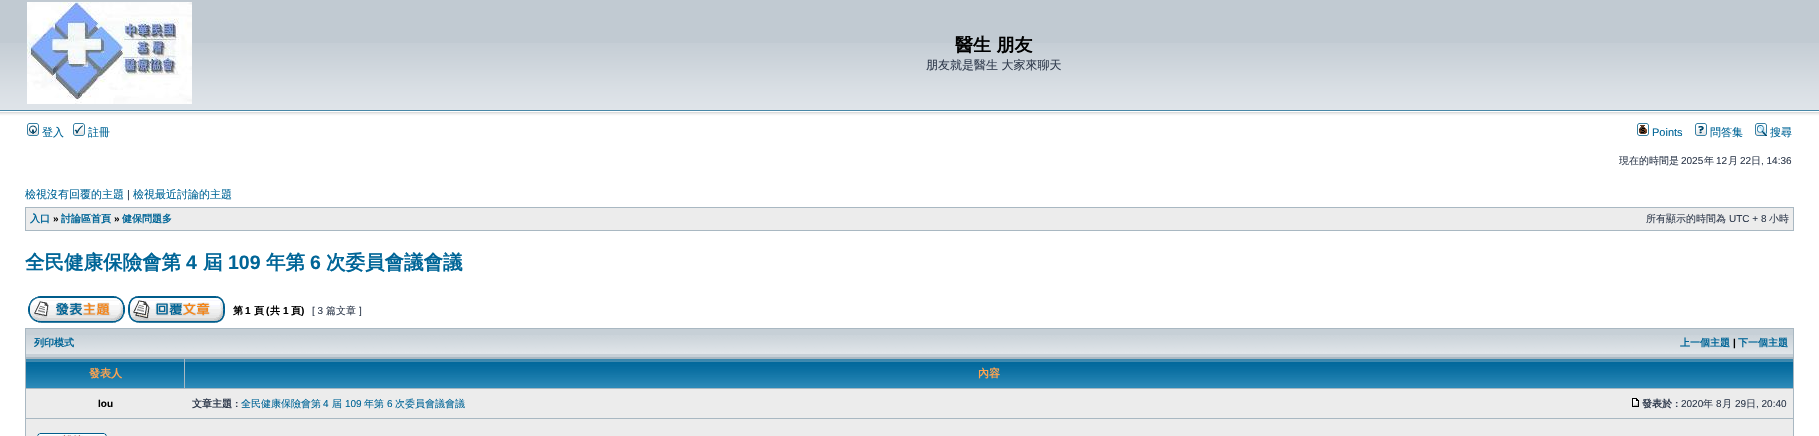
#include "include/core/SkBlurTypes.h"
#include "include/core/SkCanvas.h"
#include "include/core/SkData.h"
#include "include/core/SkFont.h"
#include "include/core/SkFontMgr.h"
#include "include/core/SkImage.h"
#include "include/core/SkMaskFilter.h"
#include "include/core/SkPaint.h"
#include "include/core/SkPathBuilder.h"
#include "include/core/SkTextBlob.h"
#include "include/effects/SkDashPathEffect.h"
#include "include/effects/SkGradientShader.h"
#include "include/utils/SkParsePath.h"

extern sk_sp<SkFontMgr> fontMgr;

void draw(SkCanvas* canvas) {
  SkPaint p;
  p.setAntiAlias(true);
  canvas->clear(SK_ColorWHITE);
  p.setColor(SkColorSetRGB(193, 202, 210));
  canvas->drawRect(SkRect::MakeLTRB(0, 0, 1819, 43), p);
  canvas->drawImageRect(SkImages::DeferredFromEncodedData(SkData::MakeFromFileName("images/1.png")), SkRect::MakeLTRB(0, 43, 1819, 121), SkSamplingOptions());
  canvas->drawImageRect(SkImages::DeferredFromEncodedData(SkData::MakeFromFileName("images/2.png")), SkRect::MakeLTRB(27, 2, 192, 104), SkSamplingOptions());
  canvas->drawImageRect(SkImages::DeferredFromEncodedData(SkData::MakeFromFileName("images/3.png")), SkRect::MakeLTRB(27, 123, 39, 136), SkSamplingOptions());
  canvas->drawImageRect(SkImages::DeferredFromEncodedData(SkData::MakeFromFileName("images/4.png")), SkRect::MakeLTRB(73, 123, 85, 136), SkSamplingOptions());
  canvas->drawImageRect(SkImages::DeferredFromEncodedData(SkData::MakeFromFileName("images/5.png")), SkRect::MakeLTRB(1637, 123, 1649, 136), SkSamplingOptions());
  canvas->drawImageRect(SkImages::DeferredFromEncodedData(SkData::MakeFromFileName("images/6.png")), SkRect::MakeLTRB(1695, 123, 1707, 136), SkSamplingOptions());
  canvas->drawImageRect(SkImages::DeferredFromEncodedData(SkData::MakeFromFileName("images/7.png")), SkRect::MakeLTRB(1755, 123, 1767, 136), SkSamplingOptions());
  p.setColor(SkColorSetRGB(169, 184, 194));
  canvas->drawRect(SkRect::MakeLTRB(25, 207, 1794, 231), p);
  p.setColor(SkColorSetRGB(236, 236, 236));
  canvas->drawRect(SkRect::MakeLTRB(26, 208, 1793, 230), p);
  canvas->drawImageRect(SkImages::DeferredFromEncodedData(SkData::MakeFromFileName("images/8.png")), SkRect::MakeLTRB(28, 296, 125, 323), SkSamplingOptions());
  canvas->drawImageRect(SkImages::DeferredFromEncodedData(SkData::MakeFromFileName("images/9.png")), SkRect::MakeLTRB(128, 296, 225, 323), SkSamplingOptions());
  p.setColor(SkColorSetRGB(169, 184, 194));
  canvas->drawRect(SkRect::MakeLTRB(25, 328, 1794, 436), p);
  p.setColor(SkColorSetRGB(199, 208, 215));
  canvas->drawRect(SkRect::MakeLTRB(26, 329, 1793, 357), p);
  canvas->drawImageRect(SkImages::DeferredFromEncodedData(SkData::MakeFromFileName("images/10.png")), SkRect::MakeLTRB(26, 335, 1793, 354), SkSamplingOptions());
  canvas->drawImageRect(SkImages::DeferredFromEncodedData(SkData::MakeFromFileName("images/11.png")), SkRect::MakeLTRB(26, 359, 184, 388), SkSamplingOptions());
  canvas->drawImageRect(SkImages::DeferredFromEncodedData(SkData::MakeFromFileName("images/12.png")), SkRect::MakeLTRB(185, 359, 1793, 388), SkSamplingOptions());
  p.setColor(SkColorSetRGB(236, 236, 236));
  canvas->drawRect(SkRect::MakeLTRB(26, 389, 1793, 418), p);
  canvas->drawImageRect(SkImages::DeferredFromEncodedData(SkData::MakeFromFileName("images/13.png")), SkRect::MakeLTRB(1632, 398, 1639, 407), SkSamplingOptions());
  canvas->drawRect(SkRect::MakeLTRB(26, 419, 1793, 436), p);
  canvas->drawImageRect(SkImages::DeferredFromEncodedData(SkData::MakeFromFileName("images/14.png")), SkRect::MakeLTRB(37, 433, 107, 436), SkSamplingOptions());
  SkFont font1(fontMgr->matchFamilyStyle("WenQuanYi Zen Hei", SkFontStyle::Bold()), 18);
  font1.setSubpixel(true);
  p.setColor(SK_ColorBLACK);
  canvas->drawString("醫生 朋友", 955, 51, font1, p);
  SkFont font2(fontMgr->matchFamilyStyle("WenQuanYi Zen Hei", SkFontStyle(500, SkFontStyle::kNormal_Width, SkFontStyle::kUpright_Slant)), 12);
  font2.setSubpixel(true);
  p.setColor(SkColorSetRGB(50, 61, 79));
  canvas->drawString("朋友就是醫生 大家來聊天", 926, 69, font2, p);
  SkFont font3(fontMgr->matchFamilyStyle("WenQuanYi Zen Hei", SkFontStyle(500, SkFontStyle::kNormal_Width, SkFontStyle::kUpright_Slant)), 11);
  font3.setSubpixel(true);
  p.setColor(SkColorSetRGB(0, 101, 151));
  canvas->drawString("登入", 42, 136, font3, p);
  canvas->drawString("註冊", 88, 136, font3, p);
  SkFont font4(fontMgr->matchFamilyStyle("Liberation Sans", SkFontStyle::Normal()), 11);
  font4.setSubpixel(true);
  canvas->drawString("Points", 1652, 136, font4, p);
  canvas->drawString("問答集", 1710, 136, font3, p);
  canvas->drawString("搜尋", 1770, 136, font3, p);
  SkFont font5(fontMgr->matchFamilyStyle("WenQuanYi Zen Hei", SkFontStyle(500, SkFontStyle::kNormal_Width, SkFontStyle::kUpright_Slant)), 10);
  font5.setSubpixel(true);
  p.setColor(SkColorSetRGB(50, 61, 79));
  canvas->drawString("現在的時間是", 1619, 164, font5, p);
  SkFont font6(fontMgr->matchFamilyStyle("Liberation Sans", SkFontStyle::Normal()), 10);
  font6.setSubpixel(true);
  canvas->drawString("2025", 1681, 164, font6, p);
  canvas->drawString("年", 1704, 164, font5, p);
  canvas->drawString("12", 1716, 164, font6, p);
  canvas->drawString("月", 1728, 164, font5, p);
  canvas->drawString("22", 1740, 164, font6, p);
  canvas->drawString("日", 1751, 164, font5, p);
  canvas->drawString(", 14:36", 1761, 164, font6, p);
  p.setColor(SkColorSetRGB(0, 101, 151));
  canvas->drawString("檢視沒有回覆的主題", 25, 198, font3, p);
  p.setColor(SkColorSetRGB(50, 61, 79));
  canvas->drawString("|", 127, 198, font4, p);
  p.setColor(SkColorSetRGB(0, 101, 151));
  canvas->drawString("檢視最近討論的主題", 133, 198, font3, p);
  SkFont font7(fontMgr->matchFamilyStyle("WenQuanYi Zen Hei", SkFontStyle::Bold()), 10);
  font7.setSubpixel(true);
  canvas->drawString("入口", 30, 222, font7, p);
  SkFont font8(fontMgr->matchFamilyStyle("Liberation Sans", SkFontStyle::Bold()), 10);
  font8.setSubpixel(true);
  p.setColor(SK_ColorBLACK);
  canvas->drawString("»", 53, 222, font8, p);
  p.setColor(SkColorSetRGB(0, 101, 151));
  canvas->drawString("討論區首頁", 61, 222, font7, p);
  p.setColor(SK_ColorBLACK);
  canvas->drawString("»", 114, 222, font8, p);
  p.setColor(SkColorSetRGB(0, 101, 151));
  canvas->drawString("健保問題多", 122, 222, font7, p);
  p.setColor(SkColorSetRGB(50, 61, 79));
  canvas->drawString("所有顯示的時間為", 1646, 222, font5, p);
  canvas->drawString("UTC + 8", 1729, 222, font6, p);
  canvas->drawString("小時", 1769, 222, font5, p);
  SkFont font9(fontMgr->matchFamilyStyle("WenQuanYi Zen Hei", SkFontStyle::Bold()), 19.5f);
  font9.setSubpixel(true);
  p.setColor(SkColorSetRGB(0, 101, 151));
  canvas->drawString("全民健康保險會第", 25, 269, font9, p);
  SkFont font10(fontMgr->matchFamilyStyle("Liberation Sans", SkFontStyle::Bold()), 19.5f);
  font10.setSubpixel(true);
  canvas->drawString("4", 186, 269, font10, p);
  canvas->drawString("屆", 203, 269, font9, p);
  canvas->drawString("109", 228, 269, font10, p);
  canvas->drawString("年第", 266, 269, font9, p);
  canvas->drawString("6", 310, 269, font10, p);
  canvas->drawString("次委員會議會議", 326, 269, font9, p);
  p.setColor(SK_ColorBLACK);
  canvas->drawString("第", 233, 314, font7, p);
  canvas->drawString("1", 245, 314, font8, p);
  canvas->drawString("頁", 254, 314, font7, p);
  canvas->drawString("(", 266, 314, font8, p);
  canvas->drawString("共", 270, 314, font7, p);
  canvas->drawString("1", 283, 314, font8, p);
  canvas->drawString("頁", 291, 314, font7, p);
  canvas->drawString(")", 301, 314, font8, p);
  p.setColor(SkColorSetRGB(50, 61, 79));
  canvas->drawString("[ 3", 312, 314, font6, p);
  canvas->drawString("篇文章", 326, 314, font5, p);
  canvas->drawString("]", 359, 314, font6, p);
  p.setColor(SkColorSetRGB(0, 101, 151));
  canvas->drawString("列印模式", 34, 346, font7, p);
  canvas->drawString("上一個主題", 1680, 346, font7, p);
  p.setColor(SK_ColorBLACK);
  canvas->drawString("|", 1733, 346, font8, p);
  p.setColor(SkColorSetRGB(0, 101, 151));
  canvas->drawString("下一個主題", 1738, 346, font7, p);
  SkFont font11(fontMgr->matchFamilyStyle("WenQuanYi Zen Hei", SkFontStyle::Bold()), 11);
  font11.setSubpixel(true);
  p.setColor(SkColorSetRGB(255, 163, 79));
  canvas->drawString("發表人", 89, 377, font11, p);
  canvas->drawString("內容", 978, 377, font11, p);
  p.setColor(SK_ColorBLACK);
  canvas->drawString("lou", 98, 407, font8, p);
  p.setColor(SkColorSetRGB(50, 61, 79));
  canvas->drawString("文章主題", 192, 407, font7, p);
  canvas->drawString(":", 235, 407, font8, p);
  p.setColor(SkColorSetRGB(0, 101, 151));
  canvas->drawString("全民健康保險會第", 241, 407, font5, p);
  canvas->drawString("4", 323, 407, font6, p);
  canvas->drawString("屆", 332, 407, font5, p);
  canvas->drawString("109", 345, 407, font6, p);
  canvas->drawString("年第", 364, 407, font5, p);
  canvas->drawString("6", 387, 407, font6, p);
  canvas->drawString("次委員會議會議", 395, 407, font5, p);
  p.setColor(SkColorSetRGB(50, 61, 79));
  canvas->drawString("發表於", 1642, 407, font7, p);
  canvas->drawString(":", 1675, 407, font8, p);
  canvas->drawString("2020", 1681, 407, font6, p);
  canvas->drawString("年", 1703, 407, font5, p);
  canvas->drawString("8", 1716, 407, font6, p);
  canvas->drawString("月", 1722, 407, font5, p);
  canvas->drawString("29", 1735, 407, font6, p);
  canvas->drawString("日", 1746, 407, font5, p);
  canvas->drawString(", 20:40", 1756, 407, font6, p);
}
